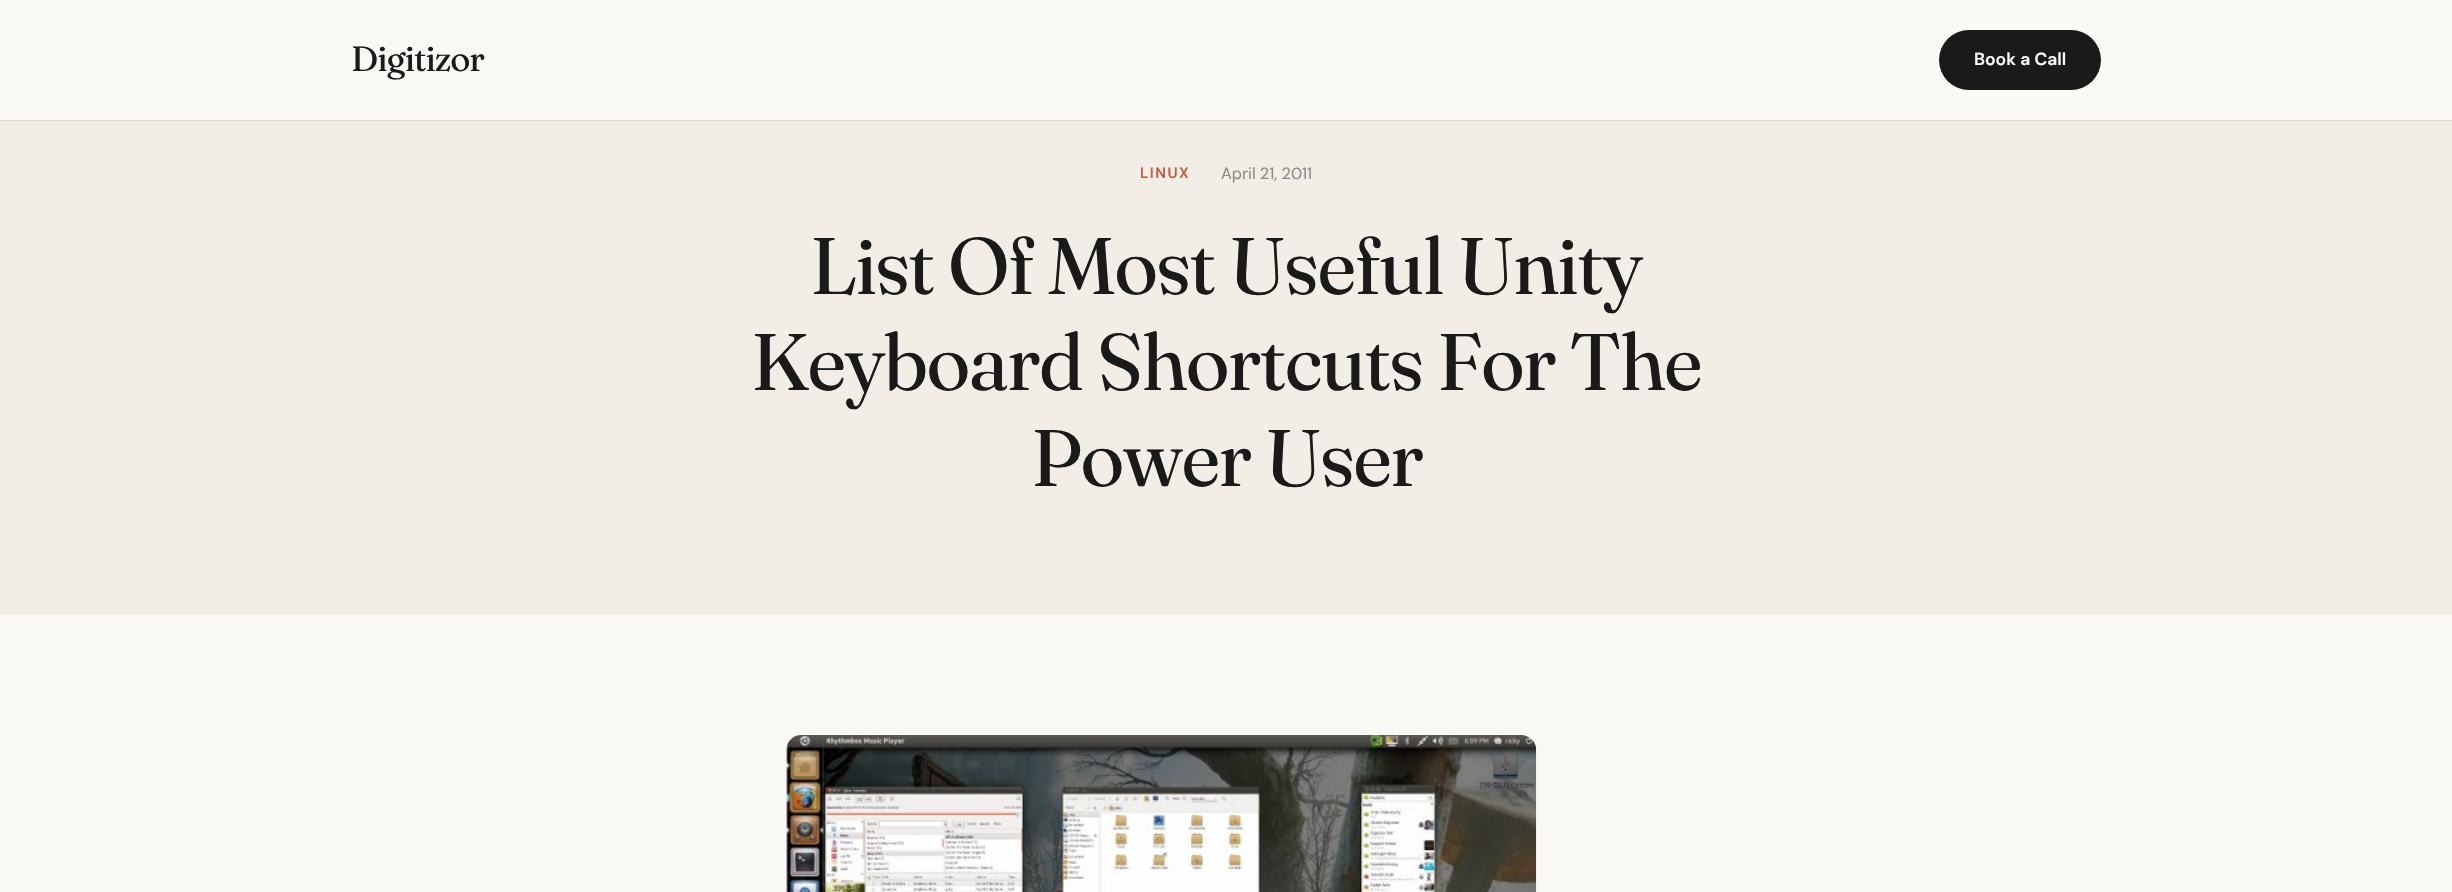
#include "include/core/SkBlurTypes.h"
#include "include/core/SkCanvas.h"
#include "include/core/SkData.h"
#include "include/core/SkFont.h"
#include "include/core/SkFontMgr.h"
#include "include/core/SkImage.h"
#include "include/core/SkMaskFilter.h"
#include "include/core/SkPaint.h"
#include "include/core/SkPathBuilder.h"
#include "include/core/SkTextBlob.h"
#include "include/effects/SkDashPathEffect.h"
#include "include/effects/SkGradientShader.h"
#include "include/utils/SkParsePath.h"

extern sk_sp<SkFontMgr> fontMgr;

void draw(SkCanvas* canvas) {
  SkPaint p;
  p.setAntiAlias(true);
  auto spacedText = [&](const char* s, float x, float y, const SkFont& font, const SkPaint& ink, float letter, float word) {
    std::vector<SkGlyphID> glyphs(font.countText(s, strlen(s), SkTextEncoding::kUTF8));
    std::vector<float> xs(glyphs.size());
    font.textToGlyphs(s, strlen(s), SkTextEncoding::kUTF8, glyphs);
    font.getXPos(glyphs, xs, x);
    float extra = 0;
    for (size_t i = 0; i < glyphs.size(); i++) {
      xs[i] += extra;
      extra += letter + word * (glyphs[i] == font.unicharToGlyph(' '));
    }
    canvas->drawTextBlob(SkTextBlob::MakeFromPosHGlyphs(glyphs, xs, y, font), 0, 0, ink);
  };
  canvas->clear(SkColorSetRGB(250, 248, 245));
  p.setColor(SkColorSetRGB(224, 216, 204));
  canvas->drawRect(SkRect::MakeLTRB(0, 120, 2452, 121), p);
  p.setColor(SkColorSetRGB(26, 26, 26));
  canvas->drawRoundRect(SkRect::MakeLTRB(1939, 30, 2101, 90), 30, 30, p);
  p.setColor(SkColorSetRGB(242, 237, 231));
  canvas->drawRect(SkRect::MakeLTRB(0, 121, 2452, 615), p);
  canvas->drawImageRect(SkImages::DeferredFromEncodedData(SkData::MakeFromFileName("images/1.png")), SkRect::MakeLTRB(786, 735, 1537, 892), SkSamplingOptions());
  SkFont font1(fontMgr->matchFamilyStyle("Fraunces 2", SkFontStyle::Normal()), 35);
  font1.setSubpixel(true);
  p.setColor(SkColorSetRGB(26, 26, 26));
  spacedText("Digitizor", 351, 71, font1, p, -1, 0);
  SkFont font2(fontMgr->matchFamilyStyle("DM Sans", SkFontStyle(600, SkFontStyle::kNormal_Width, SkFontStyle::kUpright_Slant)), 17.5f);
  font2.setSubpixel(true);
  p.setColor(SkColorSetRGB(250, 248, 245));
  canvas->drawString("Book a Call", 1974, 65, font2, p);
  SkFont font3(fontMgr->matchFamilyStyle("DM Sans", SkFontStyle(600, SkFontStyle::kNormal_Width, SkFontStyle::kUpright_Slant)), 15);
  font3.setSubpixel(true);
  p.setColor(SkColorSetRGB(196, 93, 58));
  spacedText("LINUX", 1140, 178, font3, p, 1.5f, 0);
  SkFont font4(fontMgr->matchFamilyStyle("DM Sans", SkFontStyle::Normal()), 16.25f);
  font4.setSubpixel(true);
  p.setColor(SkColorSetRGB(138, 138, 138));
  canvas->drawString("April 21, 2011", 1221, 179, font4, p);
  SkFont font5(fontMgr->matchFamilyStyle("Fraunces", SkFontStyle::Normal()), 80);
  font5.setSubpixel(true);
  p.setColor(SkColorSetRGB(26, 26, 26));
  spacedText("List Of Most Useful Unity", 810, 294, font5, p, -1.6f, 0);
  spacedText("Keyboard Shortcuts For The", 751, 390, font5, p, -1.6f, 0);
  spacedText("Power User", 1031, 486, font5, p, -1.6f, 0);
}
